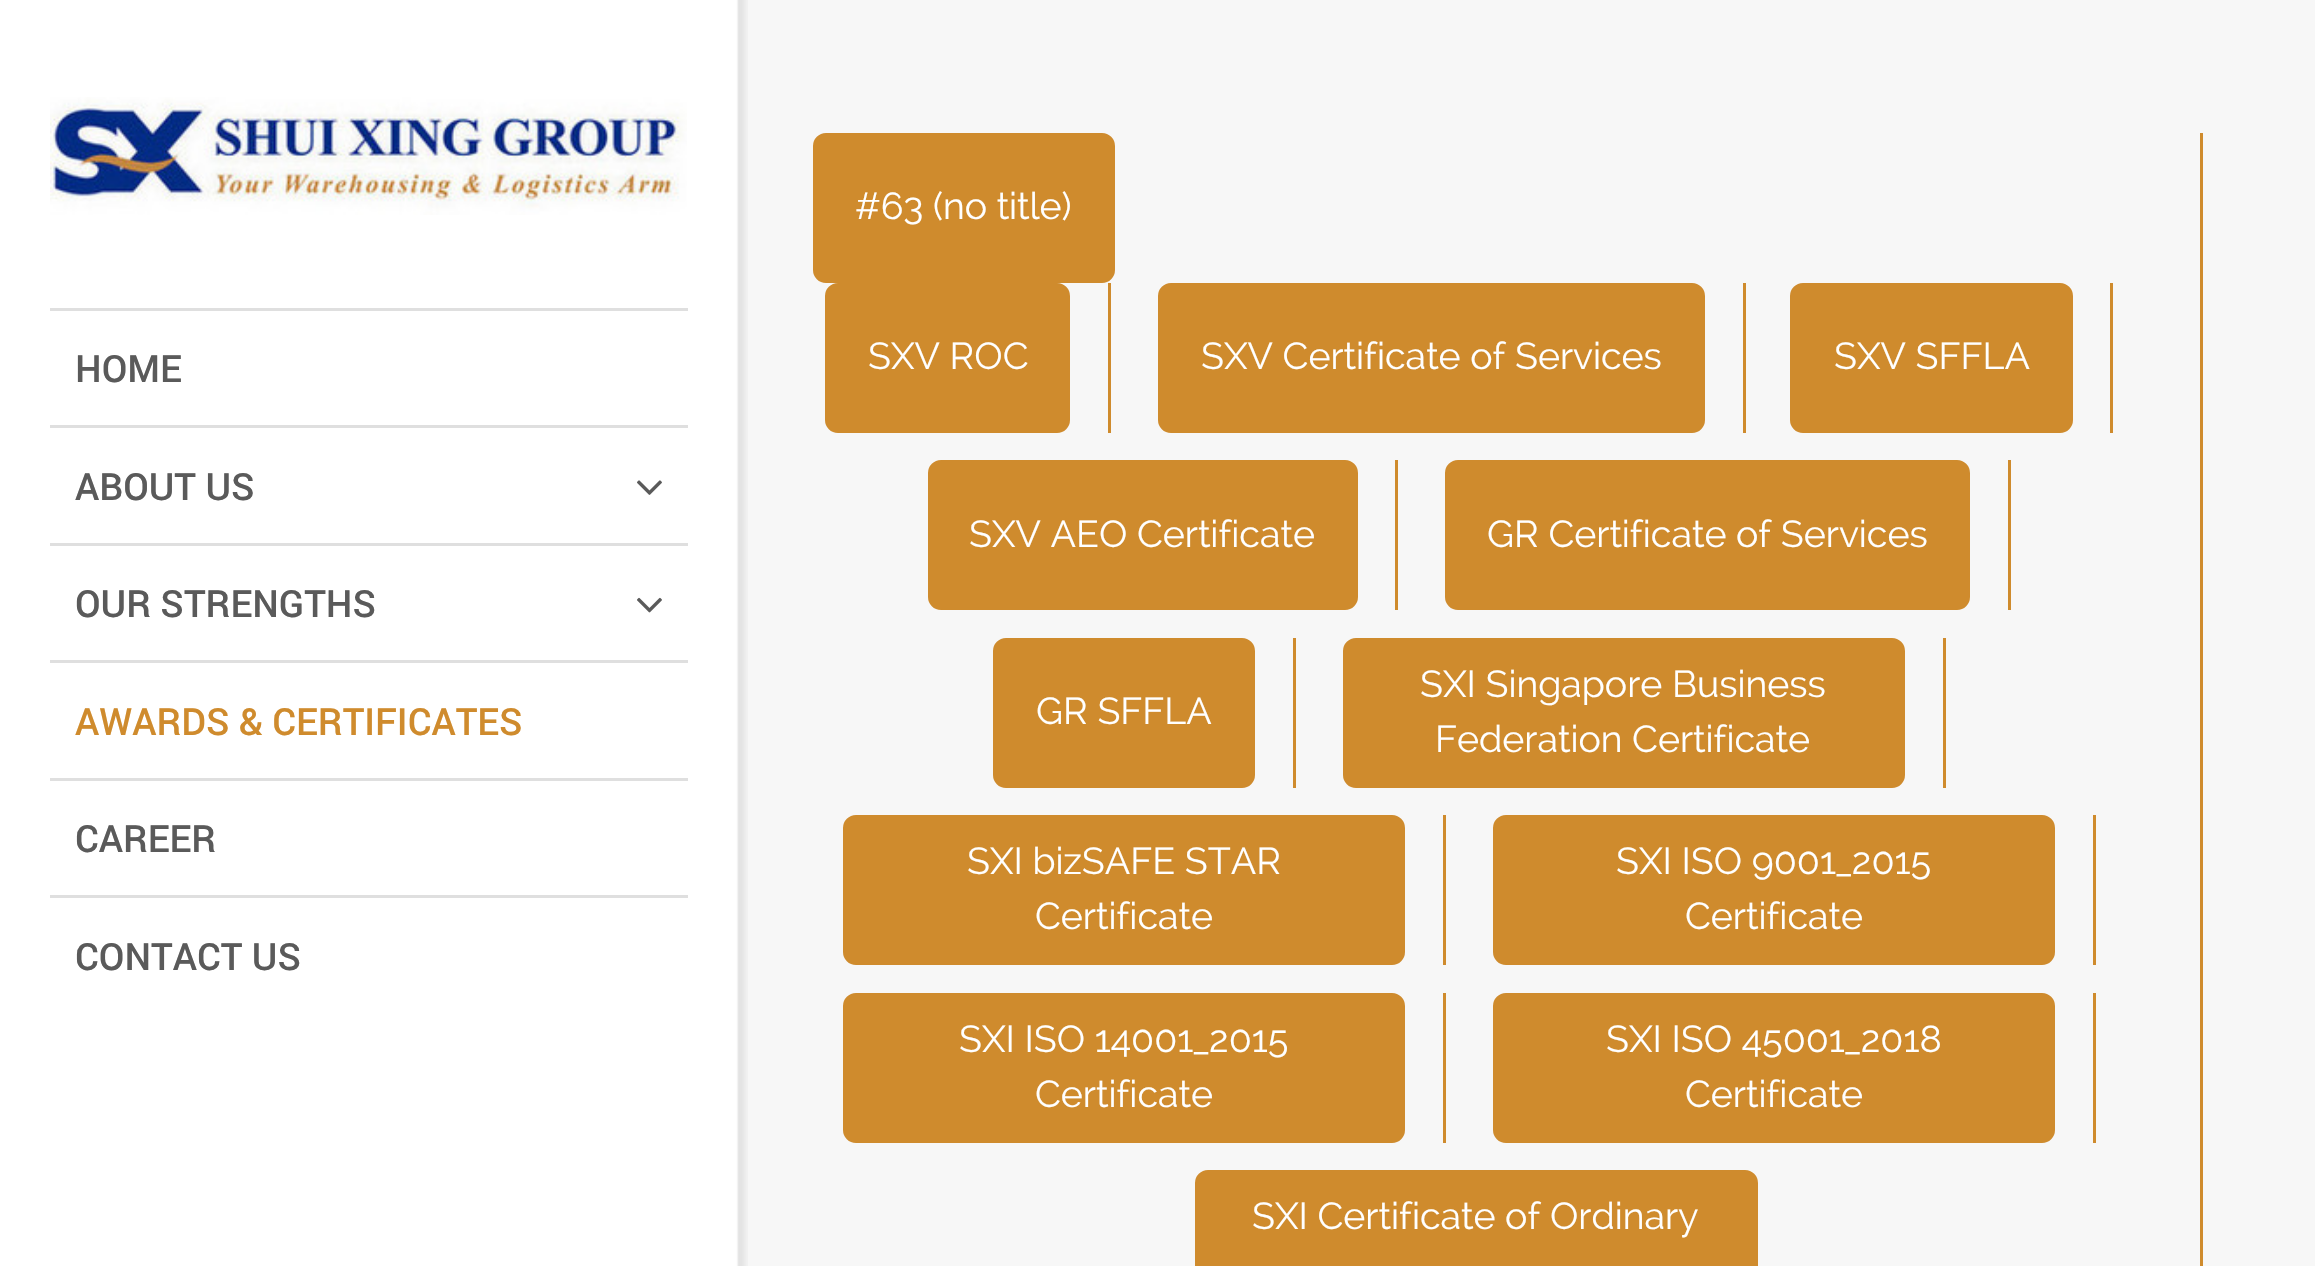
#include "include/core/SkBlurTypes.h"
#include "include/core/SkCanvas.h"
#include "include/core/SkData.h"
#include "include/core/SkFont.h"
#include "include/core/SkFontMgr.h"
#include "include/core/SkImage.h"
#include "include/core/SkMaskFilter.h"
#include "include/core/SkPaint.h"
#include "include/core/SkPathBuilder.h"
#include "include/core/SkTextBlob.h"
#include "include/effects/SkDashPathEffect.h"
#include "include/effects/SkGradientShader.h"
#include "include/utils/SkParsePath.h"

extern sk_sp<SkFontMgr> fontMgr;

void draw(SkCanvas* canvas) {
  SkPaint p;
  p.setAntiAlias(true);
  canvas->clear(SkColorSetRGB(247, 247, 247));
  canvas->drawImageRect(SkImages::DeferredFromEncodedData(SkData::MakeFromFileName("images/1.png")), SkRect::MakeLTRB(0, 0, 748, 1266), SkSamplingOptions());
  canvas->drawImageRect(SkImages::DeferredFromEncodedData(SkData::MakeFromFileName("images/2.png")), SkRect::MakeLTRB(50, 97, 687, 215), SkSamplingOptions());
  p.setColor(SkColorSetRGB(223, 223, 223));
  canvas->drawRect(SkRect::MakeLTRB(50, 308, 688, 311), p);
  canvas->drawRect(SkRect::MakeLTRB(50, 425, 688, 428), p);
  canvas->drawImageRect(SkImages::DeferredFromEncodedData(SkData::MakeFromFileName("images/3.png")), SkRect::MakeLTRB(637, 480, 662, 495), SkSamplingOptions());
  canvas->drawRect(SkRect::MakeLTRB(50, 543, 688, 546), p);
  canvas->drawImageRect(SkImages::DeferredFromEncodedData(SkData::MakeFromFileName("images/4.png")), SkRect::MakeLTRB(637, 597, 662, 613), SkSamplingOptions());
  canvas->drawRect(SkRect::MakeLTRB(50, 660, 688, 663), p);
  canvas->drawRect(SkRect::MakeLTRB(50, 778, 688, 781), p);
  canvas->drawRect(SkRect::MakeLTRB(50, 895, 688, 898), p);
  p.setColor(SkColorSetRGB(207, 139, 45));
  canvas->drawRect(SkRect::MakeLTRB(2200, 133, 2203, 1266), p);
  canvas->drawRoundRect(SkRect::MakeLTRB(815.5f, 135.5f, 1112.5f, 280.5f), 10.5f, 10.5f, p);
  p.setStyle(SkPaint::kStroke_Style);
  p.setStrokeWidth(5);
  canvas->drawRoundRect(SkRect::MakeLTRB(815.5f, 135.5f, 1112.5f, 280.5f), 10.5f, 10.5f, p);
  p.setStyle(SkPaint::kFill_Style);
  canvas->drawRect(SkRect::MakeLTRB(1108, 283, 1111, 433), p);
  canvas->drawRoundRect(SkRect::MakeLTRB(827.5f, 285.5f, 1067.5f, 430.5f), 10.5f, 10.5f, p);
  p.setStyle(SkPaint::kStroke_Style);
  canvas->drawRoundRect(SkRect::MakeLTRB(827.5f, 285.5f, 1067.5f, 430.5f), 10.5f, 10.5f, p);
  p.setStyle(SkPaint::kFill_Style);
  canvas->drawRect(SkRect::MakeLTRB(1743, 283, 1746, 433), p);
  canvas->drawRoundRect(SkRect::MakeLTRB(1160.5f, 285.5f, 1702.5f, 430.5f), 10.5f, 10.5f, p);
  p.setStyle(SkPaint::kStroke_Style);
  canvas->drawRoundRect(SkRect::MakeLTRB(1160.5f, 285.5f, 1702.5f, 430.5f), 10.5f, 10.5f, p);
  p.setStyle(SkPaint::kFill_Style);
  canvas->drawRect(SkRect::MakeLTRB(2110, 283, 2113, 433), p);
  canvas->drawRoundRect(SkRect::MakeLTRB(1792.5f, 285.5f, 2070.5f, 430.5f), 10.5f, 10.5f, p);
  p.setStyle(SkPaint::kStroke_Style);
  canvas->drawRoundRect(SkRect::MakeLTRB(1792.5f, 285.5f, 2070.5f, 430.5f), 10.5f, 10.5f, p);
  p.setStyle(SkPaint::kFill_Style);
  canvas->drawRect(SkRect::MakeLTRB(1395, 460, 1398, 610), p);
  canvas->drawRoundRect(SkRect::MakeLTRB(930.5f, 462.5f, 1355.5f, 607.5f), 10.5f, 10.5f, p);
  p.setStyle(SkPaint::kStroke_Style);
  canvas->drawRoundRect(SkRect::MakeLTRB(930.5f, 462.5f, 1355.5f, 607.5f), 10.5f, 10.5f, p);
  p.setStyle(SkPaint::kFill_Style);
  canvas->drawRect(SkRect::MakeLTRB(2008, 460, 2011, 610), p);
  canvas->drawRoundRect(SkRect::MakeLTRB(1447.5f, 462.5f, 1967.5f, 607.5f), 10.5f, 10.5f, p);
  p.setStyle(SkPaint::kStroke_Style);
  canvas->drawRoundRect(SkRect::MakeLTRB(1447.5f, 462.5f, 1967.5f, 607.5f), 10.5f, 10.5f, p);
  p.setStyle(SkPaint::kFill_Style);
  canvas->drawRect(SkRect::MakeLTRB(1293, 638, 1296, 788), p);
  canvas->drawRoundRect(SkRect::MakeLTRB(995.5f, 640.5f, 1252.5f, 785.5f), 10.5f, 10.5f, p);
  p.setStyle(SkPaint::kStroke_Style);
  canvas->drawRoundRect(SkRect::MakeLTRB(995.5f, 640.5f, 1252.5f, 785.5f), 10.5f, 10.5f, p);
  p.setStyle(SkPaint::kFill_Style);
  canvas->drawRect(SkRect::MakeLTRB(1943, 638, 1946, 788), p);
  canvas->drawRoundRect(SkRect::MakeLTRB(1345.5f, 640.5f, 1902.5f, 785.5f), 10.5f, 10.5f, p);
  p.setStyle(SkPaint::kStroke_Style);
  canvas->drawRoundRect(SkRect::MakeLTRB(1345.5f, 640.5f, 1902.5f, 785.5f), 10.5f, 10.5f, p);
  p.setStyle(SkPaint::kFill_Style);
  canvas->drawRect(SkRect::MakeLTRB(1443, 815, 1446, 965), p);
  canvas->drawRoundRect(SkRect::MakeLTRB(845.5f, 817.5f, 1402.5f, 962.5f), 10.5f, 10.5f, p);
  p.setStyle(SkPaint::kStroke_Style);
  canvas->drawRoundRect(SkRect::MakeLTRB(845.5f, 817.5f, 1402.5f, 962.5f), 10.5f, 10.5f, p);
  p.setStyle(SkPaint::kFill_Style);
  canvas->drawRect(SkRect::MakeLTRB(2093, 815, 2096, 965), p);
  canvas->drawRoundRect(SkRect::MakeLTRB(1495.5f, 817.5f, 2052.5f, 962.5f), 10.5f, 10.5f, p);
  p.setStyle(SkPaint::kStroke_Style);
  canvas->drawRoundRect(SkRect::MakeLTRB(1495.5f, 817.5f, 2052.5f, 962.5f), 10.5f, 10.5f, p);
  p.setStyle(SkPaint::kFill_Style);
  canvas->drawRect(SkRect::MakeLTRB(1443, 993, 1446, 1143), p);
  canvas->drawRoundRect(SkRect::MakeLTRB(845.5f, 995.5f, 1402.5f, 1140.5f), 10.5f, 10.5f, p);
  p.setStyle(SkPaint::kStroke_Style);
  canvas->drawRoundRect(SkRect::MakeLTRB(845.5f, 995.5f, 1402.5f, 1140.5f), 10.5f, 10.5f, p);
  p.setStyle(SkPaint::kFill_Style);
  canvas->drawRect(SkRect::MakeLTRB(2093, 993, 2096, 1143), p);
  canvas->drawRoundRect(SkRect::MakeLTRB(1495.5f, 995.5f, 2052.5f, 1140.5f), 10.5f, 10.5f, p);
  p.setStyle(SkPaint::kStroke_Style);
  canvas->drawRoundRect(SkRect::MakeLTRB(1495.5f, 995.5f, 2052.5f, 1140.5f), 10.5f, 10.5f, p);
  p.setStyle(SkPaint::kFill_Style);
  canvas->drawRoundRect(SkRect::MakeLTRB(1197.5f, 1172.5f, 1755.5f, 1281.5f), 10.5f, 10.5f, p);
  p.setStyle(SkPaint::kStroke_Style);
  canvas->drawRoundRect(SkRect::MakeLTRB(1197.5f, 1172.5f, 1755.5f, 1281.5f), 10.5f, 10.5f, p);
  SkFont font1(fontMgr->matchFamilyStyle("Roboto", SkFontStyle(500, SkFontStyle::kNormal_Width, SkFontStyle::kUpright_Slant)), 37.5f);
  font1.setSubpixel(true);
  p.setStyle(SkPaint::kFill_Style);
  p.setColor(SkColorSetRGB(90, 90, 90));
  canvas->drawString("HOME", 75, 382, font1, p);
  canvas->drawString("ABOUT US", 75, 500, font1, p);
  canvas->drawString("OUR STRENGTHS", 75, 617, font1, p);
  p.setColor(SkColorSetRGB(207, 139, 45));
  canvas->drawString("AWARDS & CERTIFICATES", 75, 735, font1, p);
  p.setColor(SkColorSetRGB(90, 90, 90));
  canvas->drawString("CAREER", 75, 852, font1, p);
  canvas->drawString("CONTACT US", 75, 970, font1, p);
  SkFont font2(fontMgr->matchFamilyStyle("Raleway", SkFontStyle::Normal()), 37.5f);
  font2.setSubpixel(true);
  p.setColor(SK_ColorWHITE);
  canvas->drawString("#63 (no title)", 855, 219, font2, p);
  canvas->drawString("SXV ROC", 868, 369, font2, p);
  canvas->drawString("SXV Certificate of Services", 1201, 369, font2, p);
  canvas->drawString("SXV SFFLA", 1834, 369, font2, p);
  canvas->drawString("SXV AEO Certificate", 969, 547, font2, p);
  canvas->drawString("GR Certificate of Services", 1487, 547, font2, p);
  canvas->drawString("GR SFFLA", 1036, 724, font2, p);
  canvas->drawString("SXI Singapore Business", 1420, 697, font2, p);
  canvas->drawString("Federation Certificate", 1435, 752, font2, p);
  canvas->drawString("SXI bizSAFE STAR", 967, 874, font2, p);
  canvas->drawString("Certificate", 1035, 929, font2, p);
  canvas->drawString("SXI ISO 9001_2015", 1616, 874, font2, p);
  canvas->drawString("Certificate", 1685, 929, font2, p);
  canvas->drawString("SXI ISO 14001_2015", 959, 1052, font2, p);
  canvas->drawString("Certificate", 1035, 1107, font2, p);
  canvas->drawString("SXI ISO 45001_2018", 1606, 1052, font2, p);
  canvas->drawString("Certificate", 1685, 1107, font2, p);
  canvas->drawString("SXI Certificate of Ordinary", 1252, 1229, font2, p);
}
